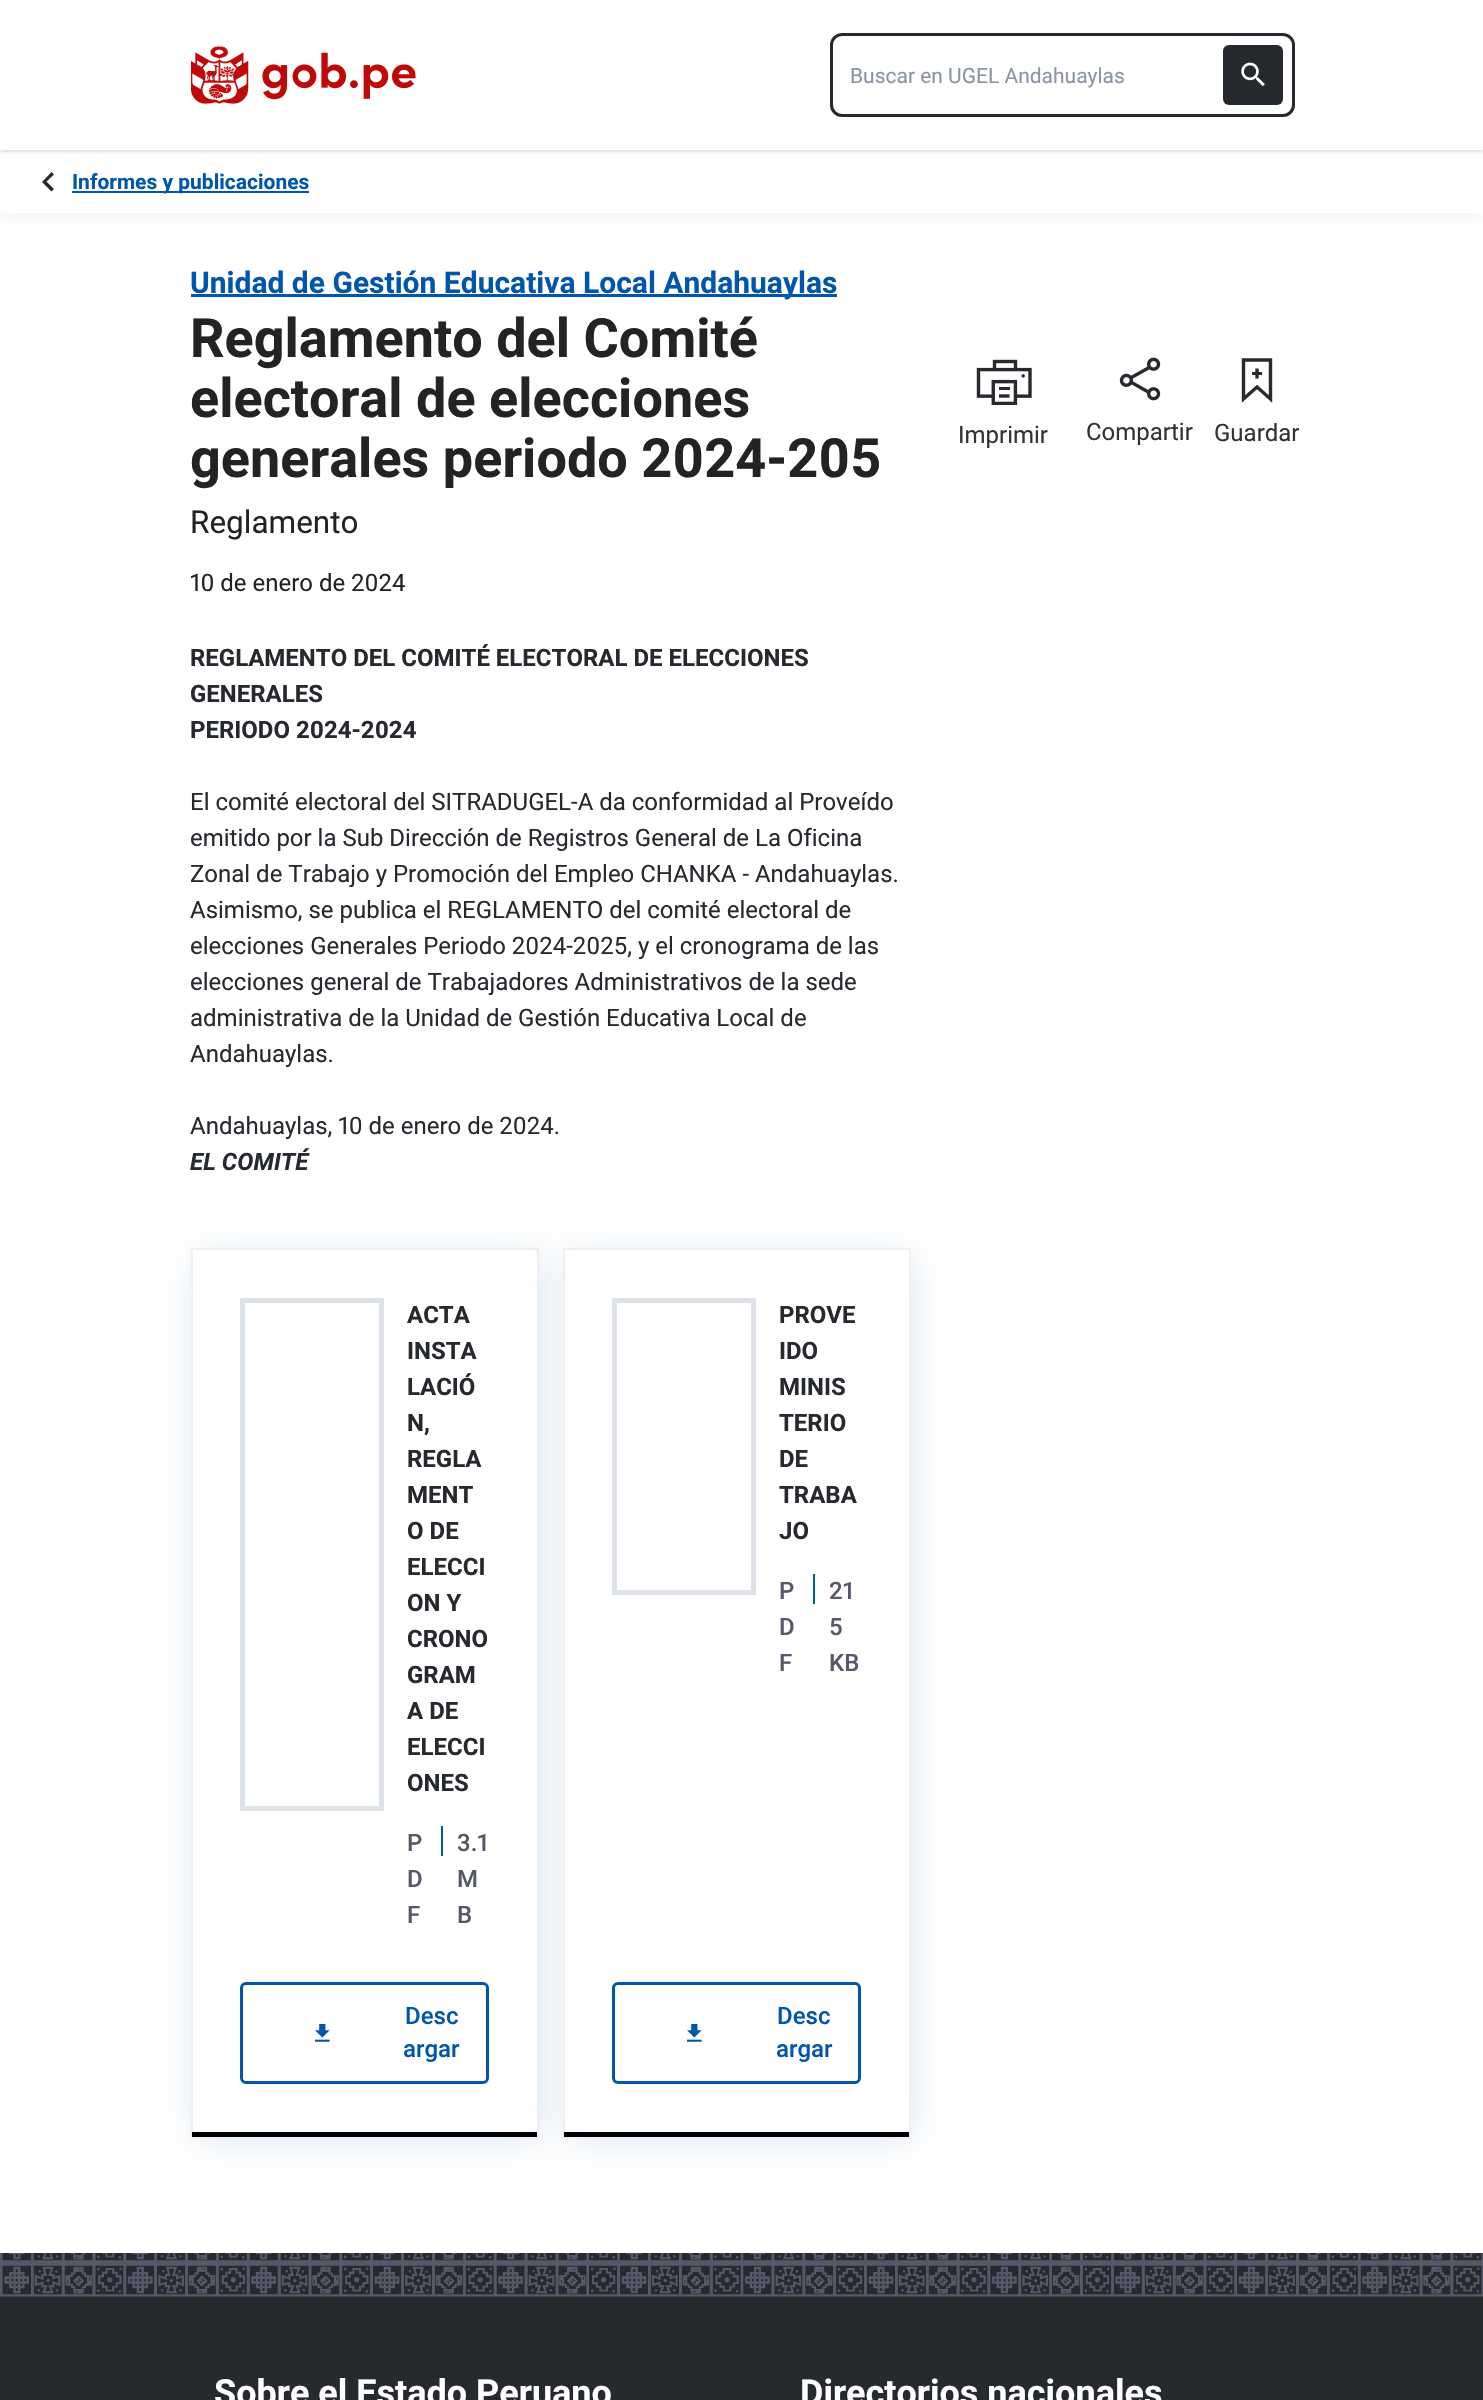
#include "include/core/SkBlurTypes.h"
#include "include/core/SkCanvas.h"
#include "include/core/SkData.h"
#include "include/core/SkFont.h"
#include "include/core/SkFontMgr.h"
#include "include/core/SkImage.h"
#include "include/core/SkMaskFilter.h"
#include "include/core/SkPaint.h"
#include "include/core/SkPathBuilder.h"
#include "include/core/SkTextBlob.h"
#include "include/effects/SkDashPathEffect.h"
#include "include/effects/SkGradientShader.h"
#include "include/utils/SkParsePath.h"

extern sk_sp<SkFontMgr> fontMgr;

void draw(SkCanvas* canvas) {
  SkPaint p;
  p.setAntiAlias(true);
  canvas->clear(SK_ColorWHITE);
  p.setColor(SkColorSetARGB(26, 0, 0, 0));
  p.setMaskFilter(SkMaskFilter::MakeBlur(kNormal_SkBlurStyle, 1.5f));
  canvas->drawRect(SkRect::MakeLTRB(2, 3, 1482, 150), p);
  p.setMaskFilter(nullptr);
  p.setMaskFilter(SkMaskFilter::MakeBlur(kNormal_SkBlurStyle, 2));
  canvas->drawRect(SkRect::MakeLTRB(0, 2, 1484, 152), p);
  p.setMaskFilter(nullptr);
  canvas->save();
  canvas->clipRect(SkRect::MakeLTRB(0, 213, 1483, 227));
  p.setColor(SkColorSetARGB(64, 190, 199, 211));
  p.setMaskFilter(SkMaskFilter::MakeBlur(kNormal_SkBlurStyle, 8));
  canvas->drawRect(SkRect::MakeLTRB(-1, 150, 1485, 216), p);
  p.setMaskFilter(nullptr);
  canvas->restore();
  p.setColor(SK_ColorWHITE);
  canvas->drawRect(SkRect::MakeLTRB(0, 0, 1483, 150), p);
  canvas->drawImageRect(SkImages::DeferredFromEncodedData(SkData::MakeFromFileName("images/1.png")), SkRect::MakeLTRB(191, 46, 416, 104), SkSamplingOptions());
  p.setStyle(SkPaint::kStroke_Style);
  p.setStrokeWidth(3);
  p.setColor(SkColorSetRGB(38, 41, 46));
  canvas->drawRoundRect(SkRect::MakeLTRB(831.5f, 34.5f, 1293.5f, 115.5f), 10.5f, 10.5f, p);
  p.setStyle(SkPaint::kFill_Style);
  canvas->drawRoundRect(SkRect::MakeLTRB(1223, 45, 1283, 105), 6, 6, p);
  canvas->drawImageRect(SkImages::DeferredFromEncodedData(SkData::MakeFromFileName("images/2.png")), SkRect::MakeLTRB(1241, 62, 1265, 87), SkSamplingOptions());
  canvas->drawPath(SkPathBuilder().moveTo(54, 174.5f).lineTo(46.5f, 181.5f).lineTo(54, 189).lineTo(51.5f, 191.5f).lineTo(42, 182).lineTo(51.5f, 172).close().detach(), p);
  p.setColor(SkColorSetRGB(0, 86, 172));
  canvas->drawRect(SkRect::MakeLTRB(72, 191, 309, 193), p);
  canvas->drawRect(SkRect::MakeLTRB(191, 294, 837, 297), p);
  canvas->save();
  canvas->clipPath(SkPathBuilder(SkPathFillType::kEvenOdd).moveTo(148, 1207).lineTo(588, 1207).lineTo(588, 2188).lineTo(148, 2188).close().moveTo(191, 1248).lineTo(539, 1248).lineTo(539, 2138).lineTo(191, 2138).close().detach(), true);
  p.setColor(SkColorSetRGB(211, 224, 236));
  p.setMaskFilter(SkMaskFilter::MakeBlur(kNormal_SkBlurStyle, 17));
  canvas->drawRect(SkRect::MakeLTRB(200, 1259, 536, 2136), p);
  p.setMaskFilter(nullptr);
  canvas->restore();
  p.setStyle(SkPaint::kStroke_Style);
  p.setStrokeWidth(2);
  p.setColor(SkColorSetRGB(238, 240, 244));
  canvas->drawRect(SkRect::MakeLTRB(192, 1249, 538, 2137), p);
  p.setStyle(SkPaint::kFill_Style);
  p.setColor(SK_ColorBLACK);
  canvas->drawRect(SkRect::MakeLTRB(192, 2132, 537, 2137), p);
  p.setStyle(SkPaint::kStroke_Style);
  p.setStrokeWidth(5);
  p.setColor(SkColorSetRGB(222, 227, 234));
  canvas->drawRect(SkRect::MakeLTRB(242.5f, 1300.5f, 381.5f, 1808.5f), p);
  p.setStyle(SkPaint::kFill_Style);
  p.setColor(SkColorSetRGB(0, 86, 172));
  canvas->drawRect(SkRect::MakeLTRB(441, 1826, 443, 1856), p);
  p.setStyle(SkPaint::kStroke_Style);
  p.setStrokeWidth(3);
  canvas->drawRoundRect(SkRect::MakeLTRB(241.5f, 1983.5f, 487.5f, 2082.5f), 4.5f, 4.5f, p);
  canvas->drawImageRect(SkImages::DeferredFromEncodedData(SkData::MakeFromFileName("images/3.png")), SkRect::MakeLTRB(315, 2024, 330, 2042), SkSamplingOptions());
  canvas->save();
  canvas->clipPath(SkPathBuilder(SkPathFillType::kEvenOdd).moveTo(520, 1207).lineTo(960, 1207).lineTo(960, 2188).lineTo(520, 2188).close().moveTo(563, 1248).lineTo(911, 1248).lineTo(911, 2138).lineTo(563, 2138).close().detach(), true);
  p.setStyle(SkPaint::kFill_Style);
  p.setColor(SkColorSetRGB(211, 224, 236));
  p.setMaskFilter(SkMaskFilter::MakeBlur(kNormal_SkBlurStyle, 17));
  canvas->drawRect(SkRect::MakeLTRB(572, 1259, 908, 2136), p);
  p.setMaskFilter(nullptr);
  canvas->restore();
  p.setStyle(SkPaint::kStroke_Style);
  p.setStrokeWidth(2);
  p.setColor(SkColorSetRGB(238, 240, 244));
  canvas->drawRect(SkRect::MakeLTRB(564, 1249, 910, 2137), p);
  p.setStyle(SkPaint::kFill_Style);
  p.setColor(SK_ColorBLACK);
  canvas->drawRect(SkRect::MakeLTRB(564, 2132, 909, 2137), p);
  p.setStyle(SkPaint::kStroke_Style);
  p.setStrokeWidth(5);
  p.setColor(SkColorSetRGB(222, 227, 234));
  canvas->drawRect(SkRect::MakeLTRB(614.5f, 1300.5f, 753.5f, 1592.5f), p);
  p.setStyle(SkPaint::kFill_Style);
  p.setColor(SkColorSetRGB(0, 86, 172));
  canvas->drawRect(SkRect::MakeLTRB(813, 1574, 815, 1604), p);
  p.setStyle(SkPaint::kStroke_Style);
  p.setStrokeWidth(3);
  canvas->drawRoundRect(SkRect::MakeLTRB(613.5f, 1983.5f, 859.5f, 2082.5f), 4.5f, 4.5f, p);
  canvas->drawImageRect(SkImages::DeferredFromEncodedData(SkData::MakeFromFileName("images/3.png")), SkRect::MakeLTRB(687, 2024, 702, 2042), SkSamplingOptions());
  canvas->drawImageRect(SkImages::DeferredFromEncodedData(SkData::MakeFromFileName("images/4.png")), SkRect::MakeLTRB(976, 359, 1032, 405), SkSamplingOptions());
  canvas->drawImageRect(SkImages::DeferredFromEncodedData(SkData::MakeFromFileName("images/5.png")), SkRect::MakeLTRB(1119, 357, 1161, 401), SkSamplingOptions());
  p.setStrokeWidth(3.4f);
  p.setColor(SkColorSetRGB(38, 41, 46));
  canvas->drawPath(SkPathBuilder().moveTo(1270.5f, 399).lineTo(1257, 387).lineTo(1243.5f, 399).lineTo(1243.5f, 360).lineTo(1270.5f, 360).close().moveTo(1257, 368.5f).lineTo(1257, 378.5f).detach(), p);
  p.setStyle(SkPaint::kFill_Style);
  canvas->drawRect(SkRect::MakeLTRB(1252, 372, 1262, 375), p);
  canvas->drawRect(SkRect::MakeLTRB(0, 2253, 1483, 2400), p);
  canvas->drawImageRect(SkImages::DeferredFromEncodedData(SkData::MakeFromFileName("images/6.png")), SkRect::MakeLTRB(0, 2253, 1483, 2297), SkSamplingOptions());
  SkFont font1(fontMgr->matchFamilyStyle("Roboto", SkFontStyle::Normal()), 21);
  font1.setSubpixel(true);
  p.setColor(SkColorSetRGB(138, 148, 162));
  canvas->drawString("Buscar en UGEL Andahuaylas", 850, 83, font1, p);
  SkFont font2(fontMgr->matchFamilyStyle("Roboto", SkFontStyle::Bold()), 21);
  font2.setSubpixel(true);
  p.setColor(SkColorSetRGB(0, 86, 172));
  canvas->drawString("Informes y publicaciones", 72, 189, font2, p);
  SkFont font3(fontMgr->matchFamilyStyle("Roboto", SkFontStyle::Bold()), 30);
  font3.setSubpixel(true);
  canvas->drawString("Unidad de Gestión Educativa Local Andahuaylas", 190, 293, font3, p);
  SkFont font4(fontMgr->matchFamilyStyle("Roboto", SkFontStyle::Bold()), 54);
  font4.setSubpixel(true);
  p.setColor(SkColorSetRGB(35, 35, 35));
  canvas->drawString("Reglamento del Comité", 190, 357, font4, p);
  canvas->drawString("electoral de elecciones", 190, 417, font4, p);
  SkFont font5(fontMgr->matchFamilyStyle("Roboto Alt", SkFontStyle::Bold()), 54);
  font5.setSubpixel(true);
  canvas->drawString("generales periodo 2024-205", 190, 477, font5, p);
  SkFont font6(fontMgr->matchFamilyStyle("Roboto", SkFontStyle::Normal()), 31.5f);
  font6.setSubpixel(true);
  canvas->drawString("Reglamento", 190, 533, font6, p);
  SkFont font7(fontMgr->matchFamilyStyle("Roboto Alt", SkFontStyle::Normal()), 24);
  font7.setSubpixel(true);
  canvas->drawString("10 de enero de 2024", 190, 591, font7, p);
  SkFont font8(fontMgr->matchFamilyStyle("Roboto", SkFontStyle::Bold()), 24);
  font8.setSubpixel(true);
  p.setColor(SkColorSetRGB(38, 41, 46));
  canvas->drawString("REGLAMENTO DEL COMITÉ ELECTORAL DE ELECCIONES", 190, 666, font8, p);
  canvas->drawString("GENERALES", 190, 702, font8, p);
  SkFont font9(fontMgr->matchFamilyStyle("Roboto Alt", SkFontStyle::Bold()), 24);
  font9.setSubpixel(true);
  canvas->drawString("PERIODO 2024-2024", 190, 738, font9, p);
  SkFont font10(fontMgr->matchFamilyStyle("Roboto", SkFontStyle::Normal()), 24);
  font10.setSubpixel(true);
  canvas->drawString("El comité electoral del SITRADUGEL-A da conformidad al Proveído", 190, 810, font10, p);
  canvas->drawString("emitido por la Sub Dirección de Registros General de La Oficina", 190, 846, font10, p);
  canvas->drawString("Zonal de Trabajo y Promoción del Empleo CHANKA - Andahuaylas.", 190, 882, font10, p);
  canvas->drawString("Asimismo, se publica el REGLAMENTO del comité electoral de", 190, 918, font10, p);
  canvas->drawString("elecciones Generales Periodo 2024-2025, y el cronograma de las", 190, 954, font7, p);
  canvas->drawString("elecciones general de Trabajadores Administrativos de la sede", 190, 990, font10, p);
  canvas->drawString("administrativa de la Unidad de Gestión Educativa Local de", 190, 1026, font10, p);
  canvas->drawString("Andahuaylas.", 190, 1062, font10, p);
  canvas->drawString("Andahuaylas, 10 de enero de 2024.", 190, 1134, font7, p);
  SkFont font11(fontMgr->matchFamilyStyle("Roboto", SkFontStyle::BoldItalic()), 24);
  font11.setSubpixel(true);
  canvas->drawString("EL COMITÉ", 190, 1170, font11, p);
  canvas->drawString("ACTA", 407, 1323, font8, p);
  canvas->drawString("INSTA", 407, 1359, font8, p);
  canvas->drawString("LACIÓ", 407, 1395, font8, p);
  canvas->drawString("N,", 407, 1431, font8, p);
  canvas->drawString("REGLA", 407, 1467, font8, p);
  canvas->drawString("MENT", 407, 1503, font8, p);
  canvas->drawString("O DE", 407, 1539, font8, p);
  canvas->drawString("ELECCI", 407, 1575, font8, p);
  canvas->drawString("ON Y", 407, 1611, font8, p);
  canvas->drawString("CRONO", 407, 1647, font8, p);
  canvas->drawString("GRAM", 407, 1683, font8, p);
  canvas->drawString("A DE", 407, 1719, font8, p);
  canvas->drawString("ELECCI", 407, 1755, font8, p);
  canvas->drawString("ONES", 407, 1791, font8, p);
  SkFont font12(fontMgr->matchFamilyStyle("Roboto", SkFontStyle(500, SkFontStyle::kNormal_Width, SkFontStyle::kUpright_Slant)), 24);
  font12.setSubpixel(true);
  p.setColor(SkColorSetRGB(85, 88, 105));
  canvas->drawString("P", 407, 1851, font12, p);
  canvas->drawString("D", 407, 1887, font12, p);
  canvas->drawString("F", 407, 1923, font12, p);
  SkFont font13(fontMgr->matchFamilyStyle("Roboto Alt", SkFontStyle(500, SkFontStyle::kNormal_Width, SkFontStyle::kUpright_Slant)), 24);
  font13.setSubpixel(true);
  canvas->drawString("3.1", 457, 1851, font13, p);
  canvas->drawString("M", 457, 1887, font12, p);
  canvas->drawString("B", 457, 1923, font12, p);
  p.setColor(SkColorSetRGB(0, 86, 172));
  canvas->drawString("Desc", 405, 2024, font12, p);
  canvas->drawString("argar", 403, 2057, font12, p);
  p.setColor(SkColorSetRGB(38, 41, 46));
  canvas->drawString("PROVE", 779, 1323, font8, p);
  canvas->drawString("IDO", 779, 1359, font8, p);
  canvas->drawString("MINIS", 779, 1395, font8, p);
  canvas->drawString("TERIO", 779, 1431, font8, p);
  canvas->drawString("DE", 779, 1467, font8, p);
  canvas->drawString("TRABA", 779, 1503, font8, p);
  canvas->drawString("JO", 779, 1539, font8, p);
  p.setColor(SkColorSetRGB(85, 88, 105));
  canvas->drawString("P", 779, 1599, font12, p);
  canvas->drawString("D", 779, 1635, font12, p);
  canvas->drawString("F", 779, 1671, font12, p);
  canvas->drawString("21", 829, 1599, font13, p);
  canvas->drawString("5", 829, 1635, font12, p);
  canvas->drawString("KB", 829, 1671, font12, p);
  p.setColor(SkColorSetRGB(0, 86, 172));
  canvas->drawString("Desc", 777, 2024, font12, p);
  canvas->drawString("argar", 776, 2057, font12, p);
  p.setColor(SkColorSetRGB(51, 51, 51));
  canvas->drawString("Imprimir", 958, 443, font10, p);
  canvas->drawString("Compartir", 1086, 440, font10, p);
  canvas->drawString("Guardar", 1214, 441, font10, p);
  SkFont font14(fontMgr->matchFamilyStyle("Roboto", SkFontStyle::Bold()), 36);
  font14.setSubpixel(true);
  p.setColor(SK_ColorWHITE);
  canvas->drawString("Sobre el Estado Peruano", 214, 2405, font14, p);
  canvas->drawString("Directorios nacionales", 800, 2405, font14, p);
}
